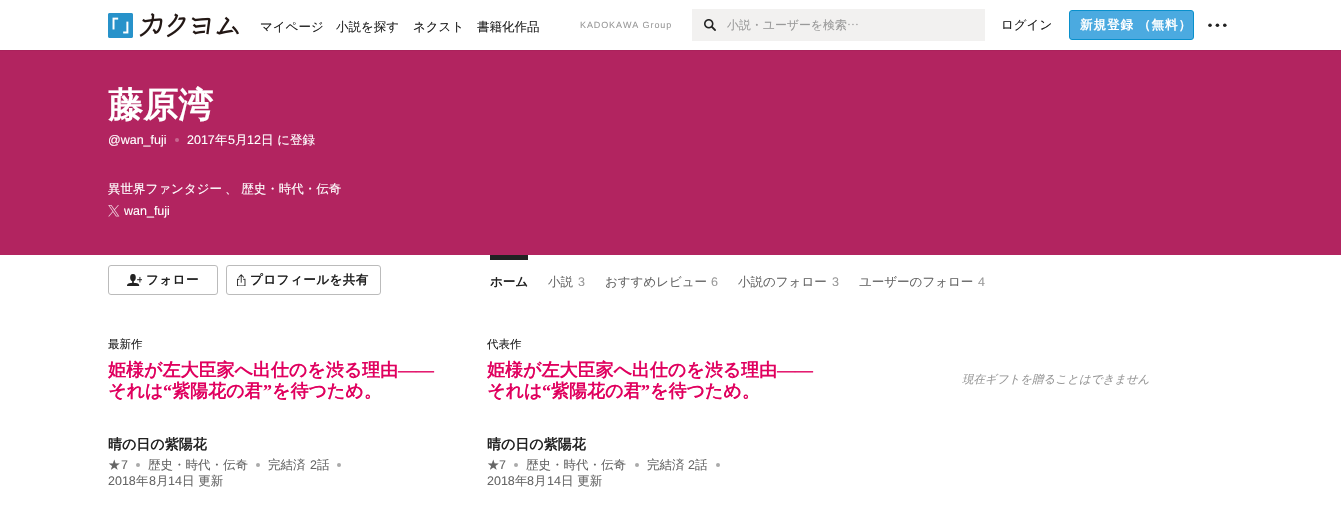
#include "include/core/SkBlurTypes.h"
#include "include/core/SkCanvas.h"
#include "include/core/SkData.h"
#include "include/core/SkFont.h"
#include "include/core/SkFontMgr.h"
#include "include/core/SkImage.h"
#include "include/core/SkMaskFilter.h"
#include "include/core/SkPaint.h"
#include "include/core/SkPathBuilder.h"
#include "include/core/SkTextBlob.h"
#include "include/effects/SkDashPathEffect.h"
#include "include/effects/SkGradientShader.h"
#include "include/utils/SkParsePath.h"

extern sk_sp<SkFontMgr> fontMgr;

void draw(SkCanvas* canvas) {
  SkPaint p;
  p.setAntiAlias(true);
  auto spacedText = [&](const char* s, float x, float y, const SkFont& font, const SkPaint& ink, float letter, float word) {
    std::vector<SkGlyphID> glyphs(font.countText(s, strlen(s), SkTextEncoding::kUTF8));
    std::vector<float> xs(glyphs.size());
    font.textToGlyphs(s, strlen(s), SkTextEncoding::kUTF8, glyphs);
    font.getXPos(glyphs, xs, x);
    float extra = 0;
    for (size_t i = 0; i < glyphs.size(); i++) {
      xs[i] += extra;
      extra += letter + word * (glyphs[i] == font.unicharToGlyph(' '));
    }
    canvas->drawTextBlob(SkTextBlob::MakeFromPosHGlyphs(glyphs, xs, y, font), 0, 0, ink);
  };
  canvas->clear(SK_ColorWHITE);
  p.setColor(SkColorSetRGB(169, 34, 91));
  canvas->drawRect(SkRect::MakeLTRB(0, 50, 1341, 51), p);
  canvas->drawImageRect(SkImages::DeferredFromEncodedData(SkData::MakeFromFileName("images/1.png")), SkRect::MakeLTRB(108, 13, 239, 38), SkSamplingOptions());
  p.setColor(SkColorSetRGB(242, 241, 240));
  canvas->drawRect(SkRect::MakeLTRB(692, 9, 985, 41), p);
  canvas->drawImageRect(SkImages::DeferredFromEncodedData(SkData::MakeFromFileName("images/2.png")), SkRect::MakeLTRB(704, 19, 716, 31), SkSamplingOptions());
  canvas->drawImageRect(SkImages::DeferredFromEncodedData(SkData::MakeFromFileName("images/3.png")), SkRect::MakeLTRB(848, 23, 858, 26), SkSamplingOptions());
  p.setColor(SkColorSetRGB(75, 170, 224));
  canvas->drawRoundRect(SkRect::MakeLTRB(1069.5f, 10.5f, 1193.5f, 39.5f), 2.5f, 2.5f, p);
  p.setStyle(SkPaint::kStroke_Style);
  p.setStrokeWidth(1);
  p.setColor(SkColorSetRGB(9, 144, 204));
  canvas->drawRoundRect(SkRect::MakeLTRB(1069.5f, 10.5f, 1193.5f, 39.5f), 2.5f, 2.5f, p);
  p.setStyle(SkPaint::kFill_Style);
  p.setColor(SkColorSetRGB(34, 34, 34));
  canvas->drawCircle(1210, 25.2f, 1.8f, p);
  canvas->drawCircle(1217.4f, 25.2f, 1.8f, p);
  canvas->drawCircle(1224.8f, 25.2f, 1.8f, p);
  p.setColor(SkColorSetRGB(178, 36, 96));
  canvas->drawRect(SkRect::MakeLTRB(0, 51, 1341, 255), p);
  p.setColor(SkColorSetRGB(201, 102, 144));
  canvas->drawCircle(177, 140, 2, p);
  canvas->drawImageRect(SkImages::DeferredFromEncodedData(SkData::MakeFromFileName("images/4.png")), SkRect::MakeLTRB(108, 205, 120, 217), SkSamplingOptions());
  p.setStyle(SkPaint::kStroke_Style);
  p.setColor(SkColorSetRGB(187, 187, 187));
  canvas->drawRoundRect(SkRect::MakeLTRB(108.5f, 265.5f, 217.5f, 294.5f), 2.5f, 2.5f, p);
  canvas->drawImageRect(SkImages::DeferredFromEncodedData(SkData::MakeFromFileName("images/5.png")), SkRect::MakeLTRB(127, 274, 142, 286), SkSamplingOptions());
  canvas->drawRoundRect(SkRect::MakeLTRB(226.5f, 265.5f, 380.5f, 294.5f), 2.5f, 2.5f, p);
  canvas->drawImageRect(SkImages::DeferredFromEncodedData(SkData::MakeFromFileName("images/6.png")), SkRect::MakeLTRB(237, 274, 246, 286), SkSamplingOptions());
  p.setStyle(SkPaint::kFill_Style);
  p.setColor(SkColorSetRGB(34, 34, 34));
  canvas->drawRect(SkRect::MakeLTRB(490, 255, 528, 260), p);
  p.setColor(SkColorSetRGB(170, 170, 170));
  canvas->drawCircle(138, 465, 2, p);
  canvas->drawCircle(258, 465, 2, p);
  canvas->drawCircle(339, 465, 2, p);
  canvas->drawCircle(516, 465, 2, p);
  canvas->drawCircle(637, 465, 2, p);
  canvas->drawCircle(718, 465, 2, p);
  SkFont font1(fontMgr->matchFamilyStyle("WenQuanYi Zen Hei", SkFontStyle(500, SkFontStyle::kNormal_Width, SkFontStyle::kUpright_Slant)), 12.5f);
  font1.setSubpixel(true);
  p.setColor(SkColorSetRGB(34, 34, 34));
  canvas->drawString("マイページ", 260, 31, font1, p);
  canvas->drawString("小説を探す", 336, 31, font1, p);
  canvas->drawString("ネクスト", 413, 31, font1, p);
  canvas->drawString("書籍化作品", 477, 31, font1, p);
  SkFont font2(fontMgr->matchFamilyStyle("Liberation Sans", SkFontStyle::Normal()), 9);
  font2.setSubpixel(true);
  p.setColor(SkColorSetRGB(153, 153, 153));
  spacedText("KADOKAWA Group", 580, 28, font2, p, 0.9f, 0);
  SkFont font3(fontMgr->matchFamilyStyle("WenQuanYi Zen Hei", SkFontStyle(500, SkFontStyle::kNormal_Width, SkFontStyle::kUpright_Slant)), 11.9f);
  font3.setSubpixel(true);
  canvas->drawString("小説・ユーザーを検索", 727, 29, font3, p);
  p.setColor(SkColorSetRGB(34, 34, 34));
  canvas->drawString("ログイン", 1001, 29, font1, p);
  SkFont font4(fontMgr->matchFamilyStyle("WenQuanYi Zen Hei", SkFontStyle::Bold()), 12.5f);
  font4.setSubpixel(true);
  p.setColor(SK_ColorWHITE);
  spacedText("新規登録", 1080, 29, font4, p, 1, 0);
  spacedText("（無料）", 1138, 29, font4, p, 1, 0);
  SkFont font5(fontMgr->matchFamilyStyle("WenQuanYi Zen Hei", SkFontStyle::Bold()), 35);
  font5.setSubpixel(true);
  canvas->drawString("藤原湾", 108, 117, font5, p);
  SkFont font6(fontMgr->matchFamilyStyle("Liberation Sans", SkFontStyle::Normal()), 12.5f);
  font6.setSubpixel(true);
  canvas->drawString("@wan_fuji", 108, 144, font6, p);
  canvas->drawString("2017", 187, 144, font6, p);
  canvas->drawString("年", 215, 144, font1, p);
  canvas->drawString("5", 228, 144, font6, p);
  canvas->drawString("月", 235, 144, font1, p);
  canvas->drawString("12", 247, 144, font6, p);
  canvas->drawString("日 に登録", 261, 144, font1, p);
  canvas->drawString("異世界ファンタジー", 108, 193, font1, p);
  canvas->drawString("、 歴史・時代・伝奇", 225, 193, font1, p);
  canvas->drawString("wan_fuji", 124, 215, font6, p);
  p.setColor(SkColorSetRGB(34, 34, 34));
  spacedText("フォロー", 146, 284, font4, p, 0.5f, 0);
  spacedText("プロフィールを共有", 250, 284, font4, p, 0.5f, 0);
  canvas->drawString("ホーム", 490, 286, font4, p);
  p.setColor(SkColorSetRGB(102, 102, 102));
  canvas->drawString("小説", 548, 286, font1, p);
  p.setColor(SkColorSetRGB(153, 153, 153));
  canvas->drawString("3", 578, 286, font6, p);
  p.setColor(SkColorSetRGB(102, 102, 102));
  canvas->drawString("おすすめレビュー", 605, 286, font1, p);
  p.setColor(SkColorSetRGB(153, 153, 153));
  canvas->drawString("6", 711, 286, font6, p);
  p.setColor(SkColorSetRGB(102, 102, 102));
  canvas->drawString("小説のフォロー", 738, 286, font1, p);
  p.setColor(SkColorSetRGB(153, 153, 153));
  canvas->drawString("3", 832, 286, font6, p);
  p.setColor(SkColorSetRGB(102, 102, 102));
  canvas->drawString("ユーザーのフォロー", 859, 286, font1, p);
  p.setColor(SkColorSetRGB(153, 153, 153));
  canvas->drawString("4", 978, 286, font6, p);
  SkFont font7(fontMgr->matchFamilyStyle("WenQuanYi Zen Hei", SkFontStyle(500, SkFontStyle::kNormal_Width, SkFontStyle::kUpright_Slant)), 11.5f);
  font7.setSubpixel(true);
  p.setColor(SkColorSetRGB(34, 34, 34));
  canvas->drawString("最新作", 108, 348, font7, p);
  SkFont font8(fontMgr->matchFamilyStyle("WenQuanYi Zen Hei", SkFontStyle::Bold()), 18);
  font8.setSubpixel(true);
  p.setColor(SkColorSetRGB(224, 0, 94));
  canvas->drawString("姫様が左大臣家へ出仕のを渋る理由", 108, 376, font8, p);
  SkFont font9(fontMgr->matchFamilyStyle("Liberation Serif", SkFontStyle::Bold()), 18);
  font9.setSubpixel(true);
  canvas->drawString("――", 398, 376, font9, p);
  canvas->drawString("それは", 108, 397, font8, p);
  canvas->drawString("“", 163, 397, font9, p);
  canvas->drawString("紫陽花の君", 172, 397, font8, p);
  canvas->drawString("”", 263, 397, font9, p);
  canvas->drawString("を待つため。", 272, 397, font8, p);
  SkFont font10(fontMgr->matchFamilyStyle("WenQuanYi Zen Hei", SkFontStyle::Bold()), 14);
  font10.setSubpixel(true);
  p.setColor(SkColorSetRGB(34, 34, 34));
  canvas->drawString("晴の日の紫陽花", 108, 449, font10, p);
  p.setColor(SkColorSetRGB(102, 102, 102));
  canvas->drawString("★", 108, 469, font1, p);
  canvas->drawString("7", 121, 469, font6, p);
  canvas->drawString("歴史・時代・伝奇", 148, 469, font1, p);
  canvas->drawString("完結済", 268, 469, font1, p);
  canvas->drawString("2", 310, 469, font6, p);
  canvas->drawString("話", 317, 469, font1, p);
  canvas->drawString("2018", 108, 485, font6, p);
  canvas->drawString("年", 136, 485, font1, p);
  canvas->drawString("8", 149, 485, font6, p);
  canvas->drawString("月", 156, 485, font1, p);
  canvas->drawString("14", 168, 485, font6, p);
  canvas->drawString("日 更新", 182, 485, font1, p);
  p.setColor(SkColorSetRGB(34, 34, 34));
  canvas->drawString("代表作", 487, 348, font7, p);
  p.setColor(SkColorSetRGB(224, 0, 94));
  canvas->drawString("姫様が左大臣家へ出仕のを渋る理由", 487, 376, font8, p);
  canvas->drawString("――", 777, 376, font9, p);
  canvas->drawString("それは", 487, 397, font8, p);
  canvas->drawString("“", 542, 397, font9, p);
  canvas->drawString("紫陽花の君", 551, 397, font8, p);
  canvas->drawString("”", 641, 397, font9, p);
  canvas->drawString("を待つため。", 650, 397, font8, p);
  p.setColor(SkColorSetRGB(34, 34, 34));
  canvas->drawString("晴の日の紫陽花", 487, 449, font10, p);
  p.setColor(SkColorSetRGB(102, 102, 102));
  canvas->drawString("★", 487, 469, font1, p);
  canvas->drawString("7", 499, 469, font6, p);
  canvas->drawString("歴史・時代・伝奇", 526, 469, font1, p);
  canvas->drawString("完結済", 647, 469, font1, p);
  canvas->drawString("2", 688, 469, font6, p);
  canvas->drawString("話", 695, 469, font1, p);
  canvas->drawString("2018", 487, 485, font6, p);
  canvas->drawString("年", 515, 485, font1, p);
  canvas->drawString("8", 527, 485, font6, p);
  canvas->drawString("月", 534, 485, font1, p);
  canvas->drawString("14", 547, 485, font6, p);
  canvas->drawString("日 更新", 561, 485, font1, p);
  SkFont font11(fontMgr->matchFamilyStyle("WenQuanYi Zen Hei", SkFontStyle(500, SkFontStyle::kNormal_Width, SkFontStyle::kItalic_Slant)), 11.5f);
  font11.setSubpixel(true);
  p.setColor(SkColorSetRGB(153, 153, 153));
  canvas->drawString("現在ギフトを贈ることはできません", 962, 383, font11, p);
}
